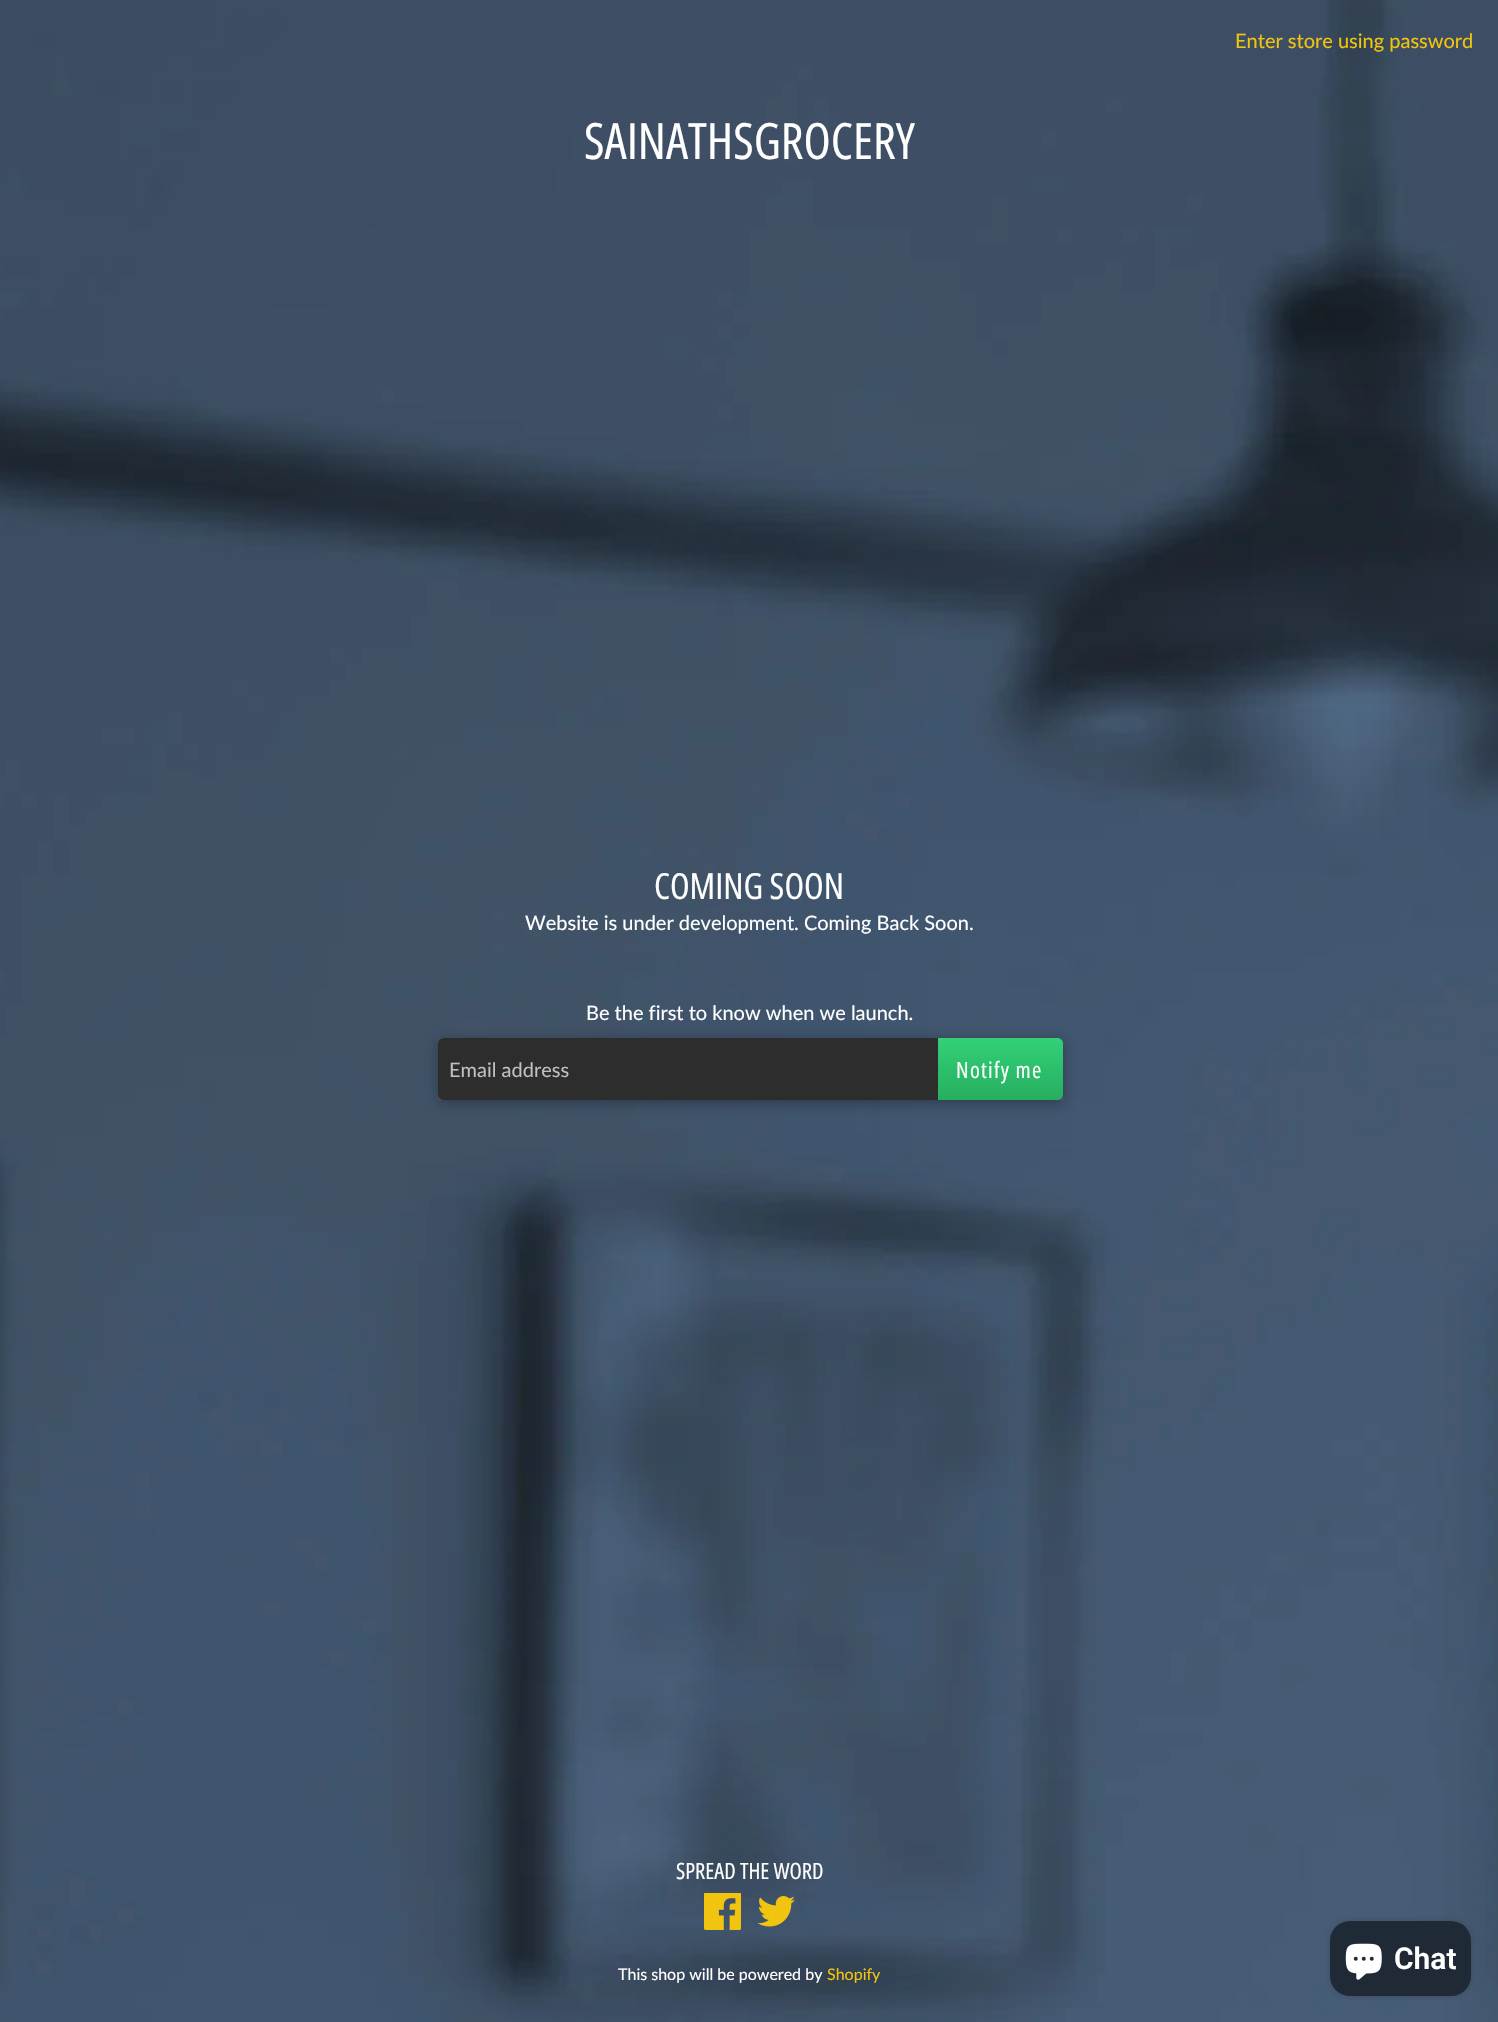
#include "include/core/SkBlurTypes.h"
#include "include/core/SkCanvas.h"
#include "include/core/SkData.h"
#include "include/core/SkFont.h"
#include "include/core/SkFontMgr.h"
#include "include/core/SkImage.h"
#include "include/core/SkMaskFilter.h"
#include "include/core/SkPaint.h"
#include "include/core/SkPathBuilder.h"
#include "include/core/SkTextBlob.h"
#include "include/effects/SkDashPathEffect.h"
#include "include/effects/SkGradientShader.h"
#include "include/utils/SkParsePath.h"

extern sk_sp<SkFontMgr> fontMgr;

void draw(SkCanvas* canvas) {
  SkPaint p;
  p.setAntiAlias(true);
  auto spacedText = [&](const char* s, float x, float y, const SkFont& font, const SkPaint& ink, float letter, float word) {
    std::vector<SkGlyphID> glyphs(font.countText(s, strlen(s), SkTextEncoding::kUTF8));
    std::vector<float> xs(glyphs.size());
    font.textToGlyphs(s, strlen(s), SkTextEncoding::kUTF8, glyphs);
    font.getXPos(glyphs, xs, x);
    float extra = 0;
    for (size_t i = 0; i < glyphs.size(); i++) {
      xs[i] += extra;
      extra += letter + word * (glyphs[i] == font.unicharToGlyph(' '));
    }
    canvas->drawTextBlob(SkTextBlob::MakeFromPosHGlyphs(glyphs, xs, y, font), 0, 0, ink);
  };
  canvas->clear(SK_ColorWHITE);
  canvas->drawImageRect(SkImages::DeferredFromEncodedData(SkData::MakeFromFileName("images/1.png")), SkRect::MakeLTRB(0, 0, 1498, 2022), SkSamplingOptions());
  canvas->save();
  canvas->clipPath(SkPathBuilder(SkPathFillType::kEvenOdd).moveTo(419, 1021).lineTo(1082, 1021).lineTo(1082, 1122).lineTo(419, 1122).close().moveTo(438, 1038).lineTo(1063, 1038).lineTo(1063, 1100).lineTo(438, 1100).close().detach(), true);
  p.setColor(SkColorSetARGB(77, 0, 0, 0));
  p.setMaskFilter(SkMaskFilter::MakeBlur(kNormal_SkBlurStyle, 6));
  canvas->drawRect(SkRect::MakeLTRB(438, 1040, 1063, 1103), p);
  p.setMaskFilter(nullptr);
  canvas->restore();
  p.setColor(SkColorSetRGB(45, 45, 45));
  canvas->drawPath(SkPathBuilder().moveTo(444, 1038).lineTo(938, 1038).lineTo(938, 1100).lineTo(444, 1100).cubicTo(440.5f, 1100, 438, 1097.5f, 438, 1094).lineTo(438, 1044).cubicTo(438, 1040.5f, 440.5f, 1038, 444, 1038).close().detach(), p);
  {
    const SkColor colors[] = {SkColorSetRGB(50, 209, 119), SkColorSetRGB(39, 174, 96)};
    const float stops[] = {0, 1};
    const SkPoint ends[] = {{1000, 1038}, {1000, 1100}};
    p.setShader(SkGradientShader::MakeLinear(ends, colors, stops, 2, SkTileMode::kClamp));
    p.setAlpha(255);
  }
  canvas->drawPath(SkPathBuilder().moveTo(938, 1038).lineTo(1057, 1038).cubicTo(1060.5f, 1038, 1063, 1040.5f, 1063, 1044).lineTo(1063, 1094).cubicTo(1063, 1097.5f, 1060.5f, 1100, 1057, 1100).lineTo(938, 1100).close().detach(), p);
  canvas->drawImageRect(SkImages::DeferredFromEncodedData(SkData::MakeFromFileName("images/2.png")), SkRect::MakeLTRB(704, 1893, 741, 1930), SkSamplingOptions());
  canvas->drawImageRect(SkImages::DeferredFromEncodedData(SkData::MakeFromFileName("images/3.png")), SkRect::MakeLTRB(758, 1896, 795, 1927), SkSamplingOptions());
  p.setShader(nullptr);
  p.setColor(SkColorSetARGB(38, 0, 0, 0));
  p.setMaskFilter(SkMaskFilter::MakeBlur(kNormal_SkBlurStyle, 3));
  canvas->drawRoundRect(SkRect::MakeLTRB(1330, 1921, 1471, 1996), 20, 20, p);
  p.setMaskFilter(nullptr);
  p.setColor(SkColorSetRGB(32, 42, 54));
  canvas->drawRoundRect(SkRect::MakeLTRB(1330, 1921, 1471, 1996), 20, 20, p);
  canvas->drawImageRect(SkImages::DeferredFromEncodedData(SkData::MakeFromFileName("images/4.png")), SkRect::MakeLTRB(1345, 1943, 1382, 1980), SkSamplingOptions());
  SkFont font1(fontMgr->matchFamilyStyle("Lato", SkFontStyle::Normal()), 20);
  font1.setSubpixel(true);
  p.setColor(SkColorSetRGB(241, 196, 15));
  canvas->drawString("Enter store using password", 1235, 48, font1, p);
  SkFont font2(fontMgr->matchFamilyStyle("Open Sans Condensed", SkFontStyle::Normal()), 50);
  font2.setSubpixel(true);
  p.setColor(SK_ColorWHITE);
  canvas->drawString("SAINATHSGROCERY", 584, 159, font2, p);
  SkFont font3(fontMgr->matchFamilyStyle("Open Sans Condensed", SkFontStyle::Normal()), 36);
  font3.setSubpixel(true);
  canvas->drawString("COMING SOON", 654, 899, font3, p);
  canvas->drawString("Website is under development. Coming Back Soon.", 525, 930, font1, p);
  canvas->drawString("Be the first to know when we launch.", 586, 1020, font1, p);
  p.setColor(SkColorSetRGB(192, 191, 191));
  canvas->drawString("Email address", 449, 1077, font1, p);
  SkFont font4(fontMgr->matchFamilyStyle("Open Sans Condensed", SkFontStyle::Normal()), 22.5f);
  font4.setSubpixel(true);
  p.setColor(SK_ColorWHITE);
  spacedText("Notify me", 956, 1078, font4, p, 1.25f, 0);
  canvas->drawString("SPREAD THE WORD", 676, 1879, font4, p);
  SkFont font5(fontMgr->matchFamilyStyle("Lato", SkFontStyle::Normal()), 16);
  font5.setSubpixel(true);
  canvas->drawString("This shop will be powered by", 618, 1980, font5, p);
  p.setColor(SkColorSetRGB(241, 196, 15));
  canvas->drawString("Shopify", 827, 1980, font5, p);
  SkFont font6(fontMgr->matchFamilyStyle("Roboto", SkFontStyle(600, SkFontStyle::kNormal_Width, SkFontStyle::kUpright_Slant)), 30);
  font6.setSubpixel(true);
  p.setColor(SK_ColorWHITE);
  canvas->drawString("Chat", 1394, 1969, font6, p);
}
